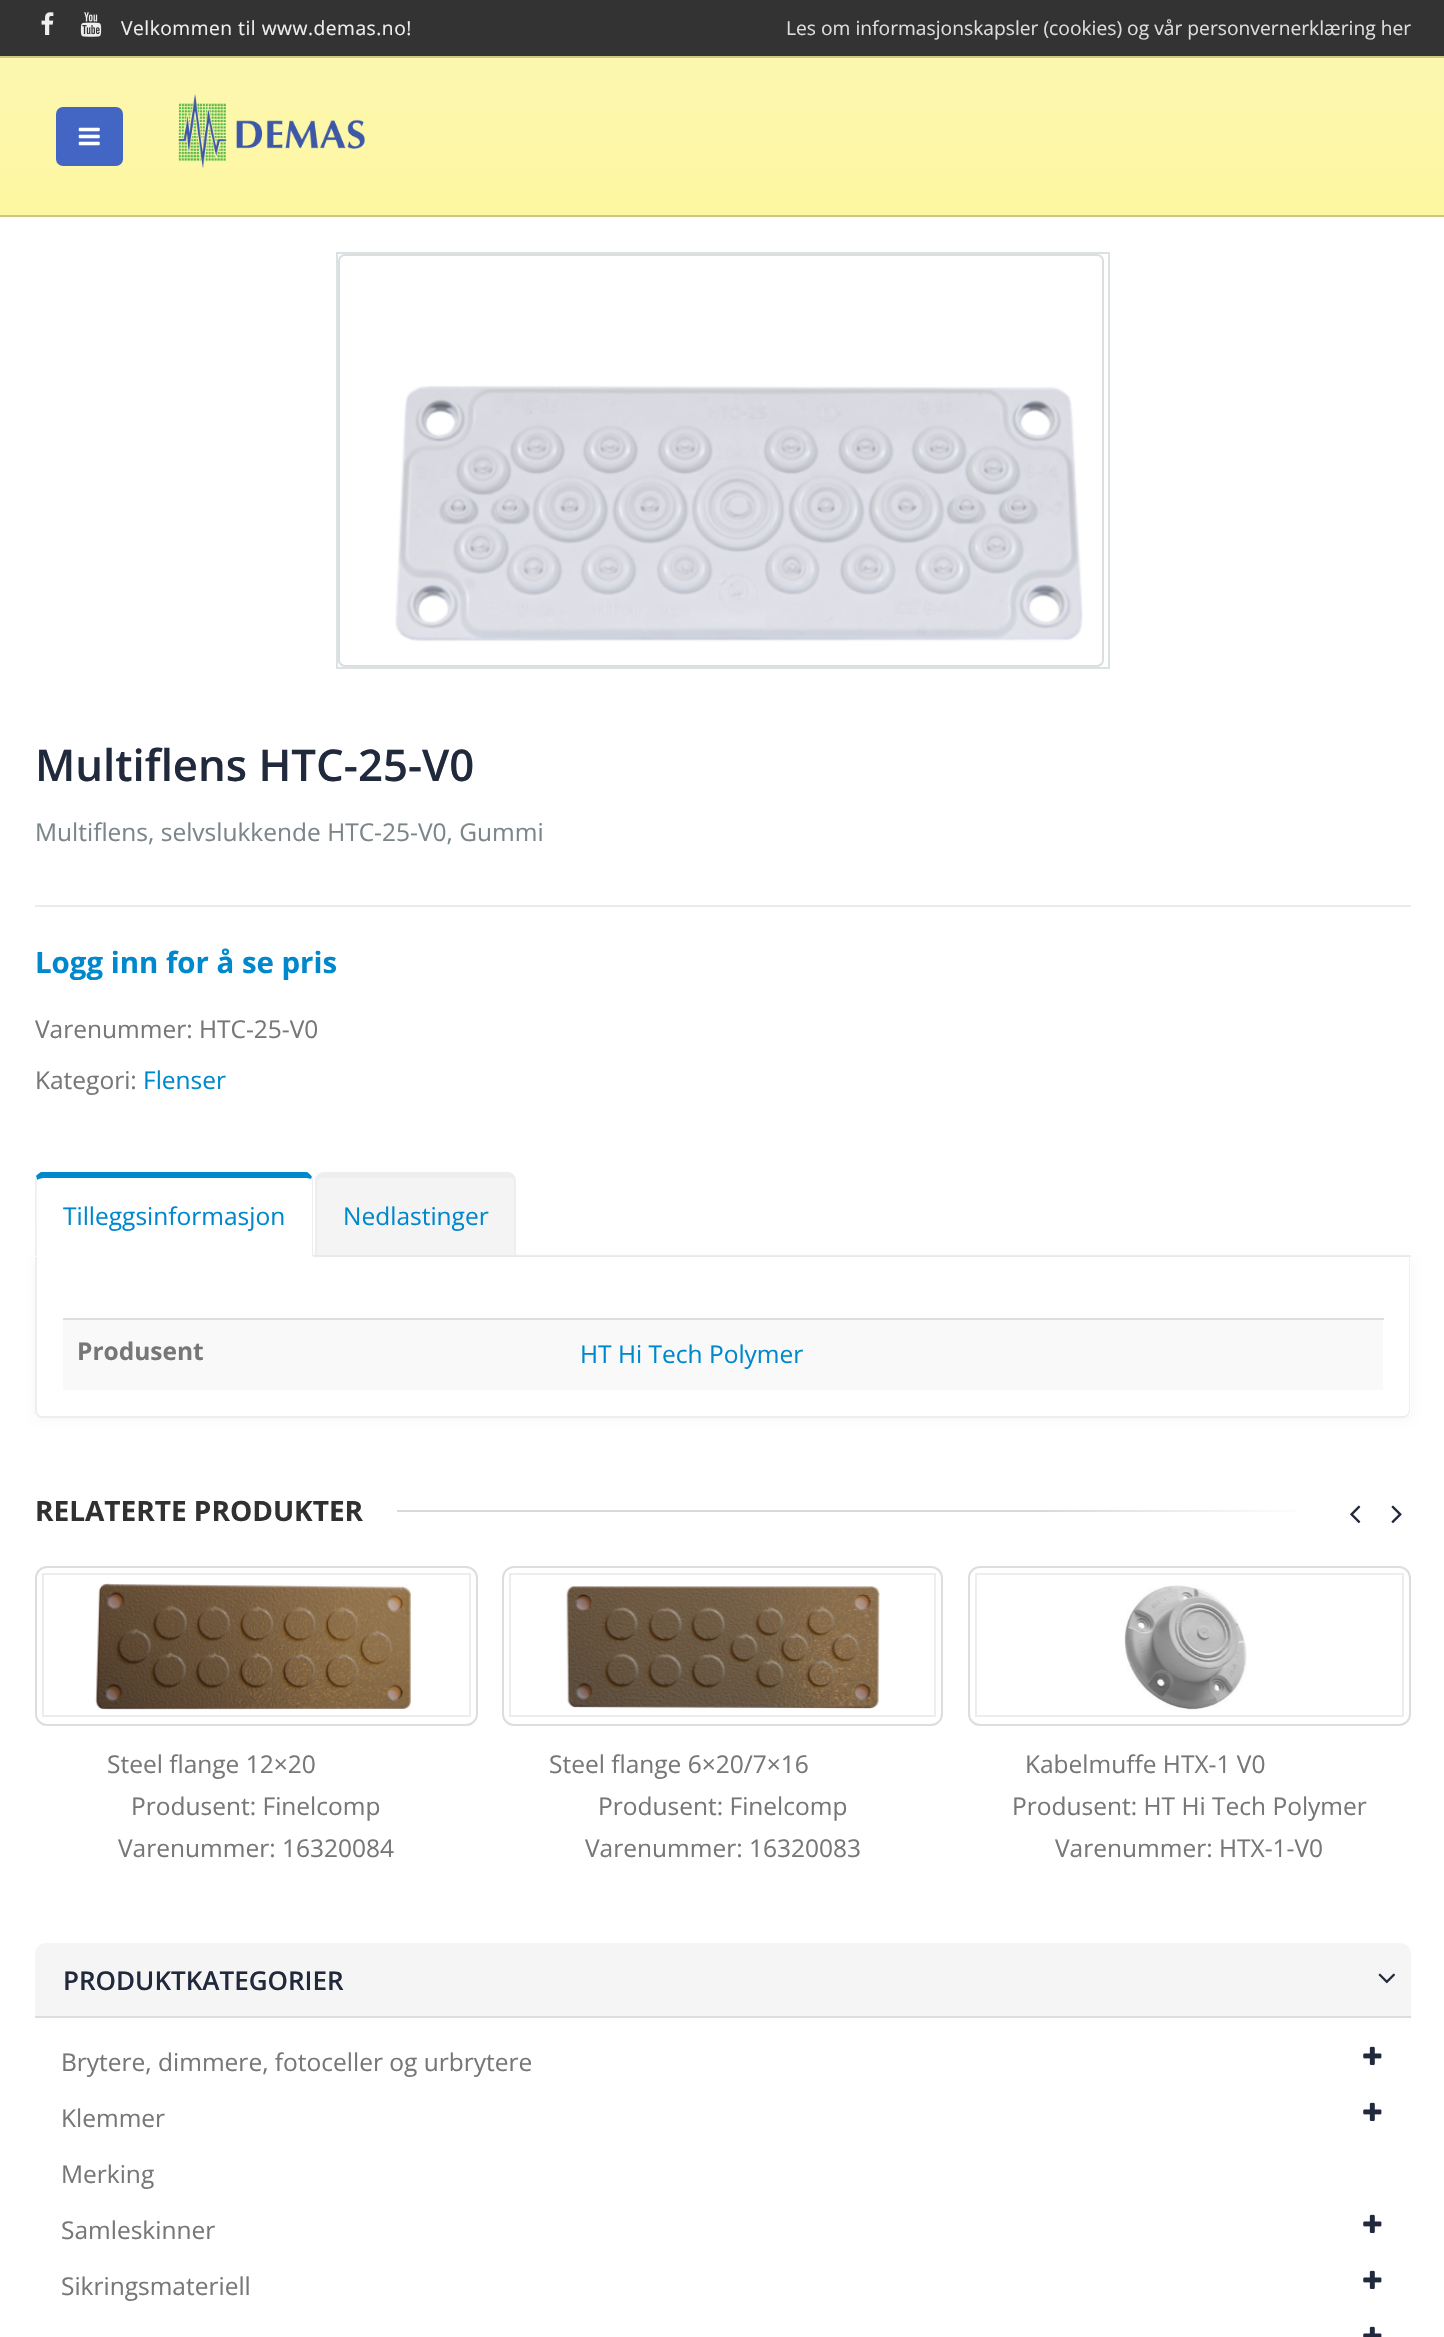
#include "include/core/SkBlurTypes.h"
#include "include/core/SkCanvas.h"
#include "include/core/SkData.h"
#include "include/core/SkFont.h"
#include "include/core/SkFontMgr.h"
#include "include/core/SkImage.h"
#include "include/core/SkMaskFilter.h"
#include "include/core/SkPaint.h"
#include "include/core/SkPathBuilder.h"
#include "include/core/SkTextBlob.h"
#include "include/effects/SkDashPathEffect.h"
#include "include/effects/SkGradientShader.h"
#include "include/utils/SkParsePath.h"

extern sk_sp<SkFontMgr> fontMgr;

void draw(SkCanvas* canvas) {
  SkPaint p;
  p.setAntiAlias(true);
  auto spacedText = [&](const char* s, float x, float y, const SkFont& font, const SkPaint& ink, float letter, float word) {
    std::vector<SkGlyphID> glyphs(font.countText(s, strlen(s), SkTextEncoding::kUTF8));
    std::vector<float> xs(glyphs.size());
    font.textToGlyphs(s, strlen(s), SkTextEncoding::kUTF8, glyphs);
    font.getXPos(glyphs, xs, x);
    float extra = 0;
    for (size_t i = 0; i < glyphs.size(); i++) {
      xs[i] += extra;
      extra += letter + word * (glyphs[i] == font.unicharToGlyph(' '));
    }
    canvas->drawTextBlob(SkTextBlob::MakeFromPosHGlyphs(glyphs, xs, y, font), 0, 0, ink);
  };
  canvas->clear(SK_ColorWHITE);
  {
    const SkColor colors[] = {SkColorSetRGB(252, 247, 181), SkColorSetRGB(253, 247, 161)};
    const float stops[] = {0, 1};
    const SkPoint ends[] = {{723, 0}, {723, 217}};
    p.setShader(SkGradientShader::MakeLinear(ends, colors, stops, 2, SkTileMode::kClamp));
    p.setAlpha(255);
  }
  canvas->drawRect(SkRect::MakeLTRB(0, 58, 1444, 215), p);
  p.setShader(nullptr);
  p.setColor(SkColorSetRGB(51, 51, 51));
  canvas->drawRect(SkRect::MakeLTRB(0, 0, 1444, 56), p);
  p.setColor(SkColorSetRGB(204, 199, 130));
  canvas->drawRect(SkRect::MakeLTRB(0, 56, 1444, 58), p);
  canvas->drawImageRect(SkImages::DeferredFromEncodedData(SkData::MakeFromFileName("images/1.png")), SkRect::MakeLTRB(41, 12, 54, 35), SkSamplingOptions());
  canvas->drawImageRect(SkImages::DeferredFromEncodedData(SkData::MakeFromFileName("images/2.png")), SkRect::MakeLTRB(80, 12, 102, 37), SkSamplingOptions());
  canvas->drawRect(SkRect::MakeLTRB(0, 215, 1444, 217), p);
  p.setColor(SkColorSetRGB(67, 101, 196));
  canvas->drawRoundRect(SkRect::MakeLTRB(56, 107, 123, 166), 7, 7, p);
  canvas->drawImageRect(SkImages::DeferredFromEncodedData(SkData::MakeFromFileName("images/3.png")), SkRect::MakeLTRB(78, 127, 100, 146), SkSamplingOptions());
  canvas->drawImageRect(SkImages::DeferredFromEncodedData(SkData::MakeFromFileName("images/4.png")), SkRect::MakeLTRB(178, 94, 366, 168), SkSamplingOptions());
  p.setStyle(SkPaint::kStroke_Style);
  p.setStrokeWidth(2);
  p.setColor(SkColorSetRGB(218, 226, 230));
  canvas->drawRect(SkRect::MakeLTRB(337, 253, 1109, 668), p);
  p.setColor(SkColorSetRGB(221, 221, 221));
  canvas->drawRoundRect(SkRect::MakeLTRB(339, 255, 1103, 666), 6, 6, p);
  canvas->drawImageRect(SkImages::DeferredFromEncodedData(SkData::MakeFromFileName("images/5.png")), SkRect::MakeLTRB(395, 385, 1083, 642), SkSamplingOptions());
  p.setStyle(SkPaint::kFill_Style);
  p.setColor(SkColorSetRGB(235, 235, 235));
  canvas->drawRect(SkRect::MakeLTRB(35, 905, 1411, 907), p);
  p.setColor(SkColorSetRGB(238, 238, 238));
  canvas->drawRect(SkRect::MakeLTRB(313, 1255, 1411, 1257), p);
  p.setColor(SkColorSetARGB(10, 0, 0, 0));
  p.setMaskFilter(SkMaskFilter::MakeBlur(kNormal_SkBlurStyle, 4.5f));
  canvas->drawRoundRect(SkRect::MakeLTRB(35, 1258, 1411, 1419), 7, 7, p);
  p.setMaskFilter(nullptr);
  p.setColor(SK_ColorWHITE);
  canvas->drawPath(SkPathBuilder().moveTo(35, 1257).lineTo(1411, 1257).lineTo(1411, 1411).cubicTo(1411, 1415, 1408, 1418, 1404, 1418).lineTo(42, 1418).cubicTo(38, 1418, 35, 1415, 35, 1411).close().detach(), p);
  p.setColor(SkColorSetRGB(238, 238, 238));
  canvas->drawPath(SkPathBuilder(SkPathFillType::kEvenOdd).moveTo(35, 1256).lineTo(1410, 1256).lineTo(1410, 1410).cubicTo(1410, 1414, 1407, 1418, 1404, 1418).lineTo(42, 1418).cubicTo(38, 1418, 35, 1414, 35, 1410).close().moveTo(37, 1256).lineTo(1409, 1256).lineTo(1409, 1410).cubicTo(1409, 1413, 1406, 1416, 1404, 1416).lineTo(42, 1416).cubicTo(39, 1416, 37, 1413, 37, 1410).close().detach(), p);
  p.setColor(SK_ColorWHITE);
  canvas->drawPath(SkPathBuilder().moveTo(44, 1173).lineTo(304, 1173).cubicTo(309, 1173, 313, 1177, 313, 1182).lineTo(313, 1257).lineTo(35, 1257).lineTo(35, 1182).cubicTo(35, 1177, 39, 1173, 44, 1173).close().detach(), p);
  p.setColor(SkColorSetRGB(0, 136, 204));
  canvas->drawPath(SkPathBuilder().moveTo(44, 1178).cubicTo(41, 1178, 38, 1179, 37, 1180).lineTo(36, 1176).cubicTo(37, 1175, 39, 1173, 41, 1172).lineTo(307, 1172).cubicTo(309, 1173, 311, 1175, 312, 1177).lineTo(311, 1179).cubicTo(309, 1178, 307, 1178, 304, 1178).close().detach(), p);
  p.setColor(SkColorSetRGB(238, 238, 238));
  canvas->drawPath(SkPathBuilder().moveTo(312, 1177).lineTo(311, 1179).lineTo(312, 1181).lineTo(312, 1256).lineTo(313, 1256).lineTo(313, 1181).cubicTo(313, 1179, 313, 1178, 312, 1177).close().detach(), p);
  canvas->drawPath(SkPathBuilder().moveTo(35, 1181).lineTo(35, 1256).lineTo(37, 1256).cubicTo(37, 1248, 36, 1181, 37, 1180).lineTo(36, 1176).close().detach(), p);
  p.setColor(SkColorSetRGB(244, 244, 244));
  canvas->drawPath(SkPathBuilder().moveTo(324, 1173).lineTo(507, 1173).cubicTo(512, 1173, 516, 1177, 516, 1182).lineTo(516, 1255).lineTo(315, 1255).lineTo(315, 1182).cubicTo(315, 1177, 319, 1173, 324, 1173).close().detach(), p);
  p.setColor(SkColorSetRGB(238, 238, 238));
  canvas->drawPath(SkPathBuilder(SkPathFillType::kEvenOdd).moveTo(324, 1172).lineTo(508, 1172).cubicTo(512, 1172, 516, 1176, 516, 1181).lineTo(516, 1255).lineTo(315, 1255).lineTo(315, 1181).cubicTo(315, 1176, 319, 1172, 324, 1172).close().moveTo(324, 1178).lineTo(508, 1178).cubicTo(511, 1178, 514, 1179, 514, 1181).lineTo(514, 1255).lineTo(317, 1255).lineTo(317, 1181).cubicTo(317, 1179, 320, 1178, 324, 1178).close().detach(), p);
  p.setColor(SkColorSetRGB(249, 249, 249));
  canvas->drawRect(SkRect::MakeLTRB(63, 1320, 1383, 1390), p);
  p.setColor(SkColorSetRGB(221, 221, 221));
  canvas->drawRect(SkRect::MakeLTRB(63, 1318, 1384, 1320), p);
  {
    const SkColor colors[] = {SkColorSetRGB(217, 217, 217), SkColorSetRGB(217, 217, 217), SK_ColorWHITE};
    const float stops[] = {0, 0.7f, 1};
    const SkPoint ends[] = {{397, 1511}, {1314, 1511}};
    p.setShader(SkGradientShader::MakeLinear(ends, colors, stops, 3, SkTileMode::kClamp));
    p.setAlpha(255);
  }
  canvas->drawRect(SkRect::MakeLTRB(397, 1510, 1296, 1512), p);
  canvas->drawImageRect(SkImages::DeferredFromEncodedData(SkData::MakeFromFileName("images/6.png")), SkRect::MakeLTRB(1350, 1505, 1361, 1524), SkSamplingOptions());
  canvas->drawImageRect(SkImages::DeferredFromEncodedData(SkData::MakeFromFileName("images/7.png")), SkRect::MakeLTRB(1391, 1505, 1402, 1524), SkSamplingOptions());
  p.setStyle(SkPaint::kStroke_Style);
  p.setShader(nullptr);
  p.setColor(SkColorSetRGB(221, 221, 221));
  canvas->drawRoundRect(SkRect::MakeLTRB(36, 1567, 477, 1725), 11, 11, p);
  p.setColor(SkColorSetRGB(237, 237, 237));
  canvas->drawRect(SkRect::MakeLTRB(43, 1574, 470, 1716), p);
  canvas->drawImageRect(SkImages::DeferredFromEncodedData(SkData::MakeFromFileName("images/8.png")), SkRect::MakeLTRB(95, 1583, 411, 1710), SkSamplingOptions());
  p.setColor(SkColorSetRGB(221, 221, 221));
  canvas->drawRoundRect(SkRect::MakeLTRB(503, 1567, 942, 1725), 11, 11, p);
  p.setColor(SkColorSetRGB(237, 237, 237));
  canvas->drawRect(SkRect::MakeLTRB(510, 1574, 935, 1716), p);
  canvas->drawImageRect(SkImages::DeferredFromEncodedData(SkData::MakeFromFileName("images/9.png")), SkRect::MakeLTRB(566, 1586, 880, 1709), SkSamplingOptions());
  p.setColor(SkColorSetRGB(221, 221, 221));
  canvas->drawRoundRect(SkRect::MakeLTRB(969, 1567, 1410, 1725), 11, 11, p);
  p.setColor(SkColorSetRGB(237, 237, 237));
  canvas->drawRect(SkRect::MakeLTRB(976, 1574, 1403, 1716), p);
  canvas->drawImageRect(SkImages::DeferredFromEncodedData(SkData::MakeFromFileName("images/10.png")), SkRect::MakeLTRB(1124, 1585, 1247, 1710), SkSamplingOptions());
  p.setStyle(SkPaint::kFill_Style);
  p.setColor(SkColorSetRGB(245, 245, 245));
  canvas->drawPath(SkPathBuilder().moveTo(46, 1943).lineTo(1400, 1943).cubicTo(1406, 1943, 1411, 1948, 1411, 1954).lineTo(1411, 2018).lineTo(35, 2018).lineTo(35, 1954).cubicTo(35, 1948, 40, 1943, 46, 1943).close().detach(), p);
  p.setColor(SkColorSetRGB(221, 221, 221));
  canvas->drawRect(SkRect::MakeLTRB(35, 2016, 1411, 2018), p);
  canvas->drawImageRect(SkImages::DeferredFromEncodedData(SkData::MakeFromFileName("images/11.png")), SkRect::MakeLTRB(1378, 1973, 1395, 1984), SkSamplingOptions());
  canvas->drawImageRect(SkImages::DeferredFromEncodedData(SkData::MakeFromFileName("images/12.png")), SkRect::MakeLTRB(1363, 2046, 1382, 2065), SkSamplingOptions());
  canvas->drawImageRect(SkImages::DeferredFromEncodedData(SkData::MakeFromFileName("images/12.png")), SkRect::MakeLTRB(1363, 2102, 1382, 2121), SkSamplingOptions());
  canvas->drawImageRect(SkImages::DeferredFromEncodedData(SkData::MakeFromFileName("images/12.png")), SkRect::MakeLTRB(1363, 2214, 1382, 2233), SkSamplingOptions());
  canvas->drawImageRect(SkImages::DeferredFromEncodedData(SkData::MakeFromFileName("images/12.png")), SkRect::MakeLTRB(1363, 2270, 1382, 2289), SkSamplingOptions());
  canvas->drawImageRect(SkImages::DeferredFromEncodedData(SkData::MakeFromFileName("images/13.png")), SkRect::MakeLTRB(1363, 2326, 1382, 2337), SkSamplingOptions());
  SkFont font1(fontMgr->matchFamilyStyle("Open Sans", SkFontStyle::Normal()), 19.25f);
  font1.setSubpixel(true);
  p.setColor(SkColorSetRGB(238, 238, 238));
  spacedText("Velkommen til www.demas.no!", 121, 35, font1, p, 0.5f, 0);
  p.setColor(SkColorSetRGB(221, 221, 221));
  canvas->drawString("Les om informasjonskapsler (cookies) og vår personvernerklæring her", 786, 35, font1, p);
  SkFont font2(fontMgr->matchFamilyStyle("Open Sans", SkFontStyle(600, SkFontStyle::kNormal_Width, SkFontStyle::kUpright_Slant)), 43.75f);
  font2.setSubpixel(true);
  p.setColor(SkColorSetRGB(33, 41, 60));
  canvas->drawString("Multiflens HTC-25-V0", 35, 781, font2, p);
  SkFont font3(fontMgr->matchFamilyStyle("Open Sans", SkFontStyle::Normal()), 24.5f);
  font3.setSubpixel(true);
  p.setColor(SkColorSetRGB(123, 133, 138));
  canvas->drawString("Multiflens, selvslukkende HTC-25-V0, Gummi", 35, 841, font3, p);
  SkFont font4(fontMgr->matchFamilyStyle("Open Sans", SkFontStyle::Bold()), 29.4f);
  font4.setSubpixel(true);
  p.setColor(SkColorSetRGB(0, 136, 204));
  canvas->drawString("Logg inn for å se pris", 35, 973, font4, p);
  p.setColor(SkColorSetRGB(119, 119, 119));
  canvas->drawString("Varenummer: HTC-25-V0", 35, 1038, font3, p);
  canvas->drawString("Kategori:", 35, 1089, font3, p);
  p.setColor(SkColorSetRGB(0, 136, 204));
  canvas->drawString("Flenser", 143, 1089, font3, p);
  canvas->drawString("Tilleggsinformasjon", 63, 1225, font3, p);
  canvas->drawString("Nedlastinger", 343, 1225, font3, p);
  SkFont font5(fontMgr->matchFamilyStyle("Open Sans", SkFontStyle::Bold()), 24.5f);
  font5.setSubpixel(true);
  p.setColor(SkColorSetRGB(119, 119, 119));
  canvas->drawString("Produsent", 77, 1360, font5, p);
  p.setColor(SkColorSetRGB(0, 136, 204));
  canvas->drawString("HT Hi Tech Polymer", 580, 1363, font3, p);
  SkFont font6(fontMgr->matchFamilyStyle("Open Sans", SkFontStyle::Bold()), 28);
  font6.setSubpixel(true);
  p.setColor(SkColorSetRGB(49, 49, 49));
  canvas->drawString("RELATERTE PRODUKTER", 35, 1521, font6, p);
  p.setColor(SkColorSetRGB(119, 119, 119));
  canvas->drawString("Steel flange 12×20", 107, 1773, font3, p);
  canvas->drawString("Produsent: Finelcomp", 131, 1815, font3, p);
  canvas->drawString("Varenummer: 16320084", 118, 1857, font3, p);
  canvas->drawString("Steel flange 6×20/7×16", 549, 1773, font3, p);
  canvas->drawString("Produsent: Finelcomp", 598, 1815, font3, p);
  canvas->drawString("Varenummer: 16320083", 585, 1857, font3, p);
  canvas->drawString("Kabelmuffe HTX-1 V0", 1025, 1773, font3, p);
  canvas->drawString("Produsent: HT Hi Tech Polymer", 1012, 1815, font3, p);
  canvas->drawString("Varenummer: HTX-1-V0", 1055, 1857, font3, p);
  SkFont font7(fontMgr->matchFamilyStyle("Open Sans", SkFontStyle(600, SkFontStyle::kNormal_Width, SkFontStyle::kUpright_Slant)), 26);
  font7.setSubpixel(true);
  p.setColor(SkColorSetRGB(33, 41, 60));
  canvas->drawString("PRODUKTKATEGORIER", 63, 1990, font7, p);
  p.setColor(SkColorSetRGB(119, 119, 119));
  canvas->drawString("Brytere, dimmere, fotoceller og urbrytere", 61, 2071, font3, p);
  canvas->drawString("Klemmer", 61, 2127, font3, p);
  canvas->drawString("Merking", 61, 2183, font3, p);
  canvas->drawString("Samleskinner", 61, 2239, font3, p);
  canvas->drawString("Sikringsmateriell", 61, 2295, font3, p);
}
